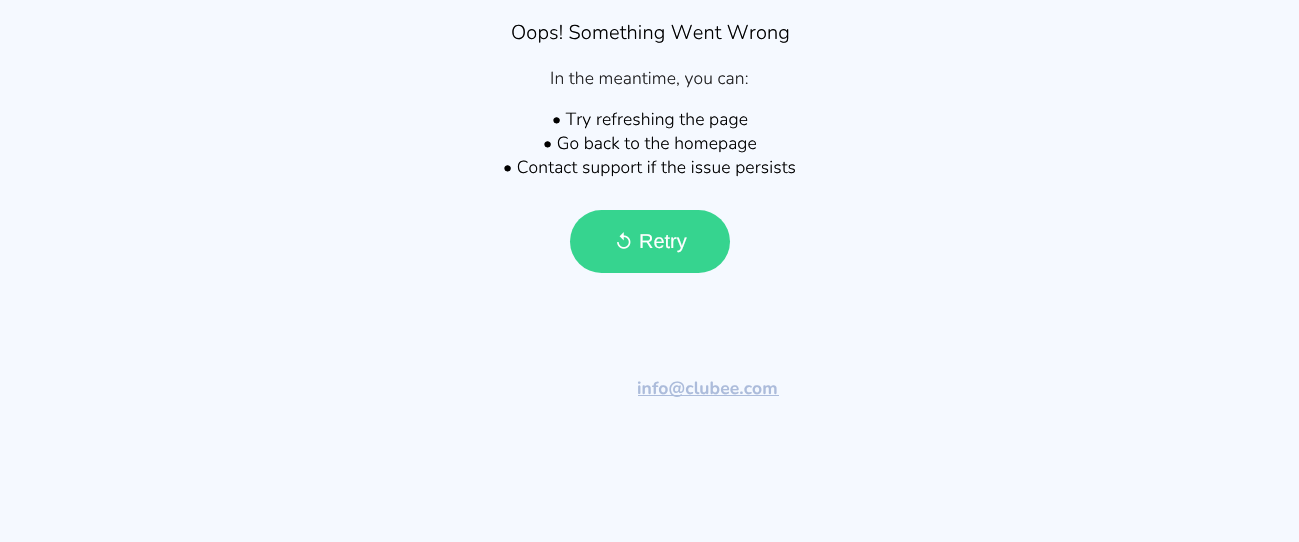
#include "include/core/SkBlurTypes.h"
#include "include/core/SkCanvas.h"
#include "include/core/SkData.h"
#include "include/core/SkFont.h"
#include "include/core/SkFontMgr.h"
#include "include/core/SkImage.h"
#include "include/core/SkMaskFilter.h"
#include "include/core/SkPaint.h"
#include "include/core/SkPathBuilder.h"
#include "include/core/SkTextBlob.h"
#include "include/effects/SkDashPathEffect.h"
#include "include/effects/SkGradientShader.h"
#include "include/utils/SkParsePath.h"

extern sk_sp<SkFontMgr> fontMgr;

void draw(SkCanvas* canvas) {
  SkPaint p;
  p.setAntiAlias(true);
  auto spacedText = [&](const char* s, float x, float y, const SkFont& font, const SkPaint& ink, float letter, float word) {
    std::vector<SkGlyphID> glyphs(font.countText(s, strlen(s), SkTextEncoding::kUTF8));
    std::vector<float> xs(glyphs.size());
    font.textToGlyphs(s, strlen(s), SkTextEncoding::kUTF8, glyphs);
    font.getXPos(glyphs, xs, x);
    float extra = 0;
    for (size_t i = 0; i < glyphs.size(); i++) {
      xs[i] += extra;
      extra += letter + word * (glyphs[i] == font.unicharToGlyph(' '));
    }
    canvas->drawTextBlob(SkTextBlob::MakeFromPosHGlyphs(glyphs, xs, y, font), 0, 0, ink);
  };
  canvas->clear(SkColorSetRGB(245, 249, 255));
  p.setColor(SkColorSetRGB(54, 212, 143));
  canvas->drawRoundRect(SkRect::MakeLTRB(570, 210, 730, 273), 31.5f, 31.5f, p);
  canvas->drawImageRect(SkImages::DeferredFromEncodedData(SkData::MakeFromFileName("images/1.png")), SkRect::MakeLTRB(617, 232, 631, 249), SkSamplingOptions());
  p.setColor(SkColorSetRGB(172, 188, 219));
  canvas->drawRect(SkRect::MakeLTRB(638, 395, 779, 396), p);
  SkFont font1(fontMgr->matchFamilyStyle("Nunito", SkFontStyle(300, SkFontStyle::kNormal_Width, SkFontStyle::kUpright_Slant)), 20);
  font1.setSubpixel(true);
  p.setColor(SK_ColorBLACK);
  spacedText("Oops! Something Went Wrong", 511, 39, font1, p, 0.15f, 0);
  SkFont font2(fontMgr->matchFamilyStyle("Nunito", SkFontStyle(300, SkFontStyle::kNormal_Width, SkFontStyle::kUpright_Slant)), 17.5f);
  font2.setSubpixel(true);
  p.setColor(SkColorSetRGB(32, 32, 33));
  spacedText("In the meantime, you can:", 550, 84, font2, p, 0.1f, 0);
  p.setColor(SK_ColorBLACK);
  spacedText("• Try refreshing the page", 552, 125, font2, p, 0.1f, 0);
  spacedText("• Go back to the homepage", 543, 149, font2, p, 0.1f, 0);
  spacedText("• Contact support if the issue persists", 503, 173, font2, p, 0.1f, 0);
  SkFont font3(fontMgr->matchFamilyStyle("Liberation Sans", SkFontStyle::Normal()), 20);
  font3.setSubpixel(true);
  p.setColor(SK_ColorWHITE);
  canvas->drawString("Retry", 639, 248, font3, p);
  SkFont font4(fontMgr->matchFamilyStyle("Nunito", SkFontStyle::Bold()), 17.5f);
  font4.setSubpixel(true);
  p.setColor(SkColorSetRGB(172, 188, 219));
  spacedText("info@clubee.com", 637, 394, font4, p, 0.1f, 0);
}
